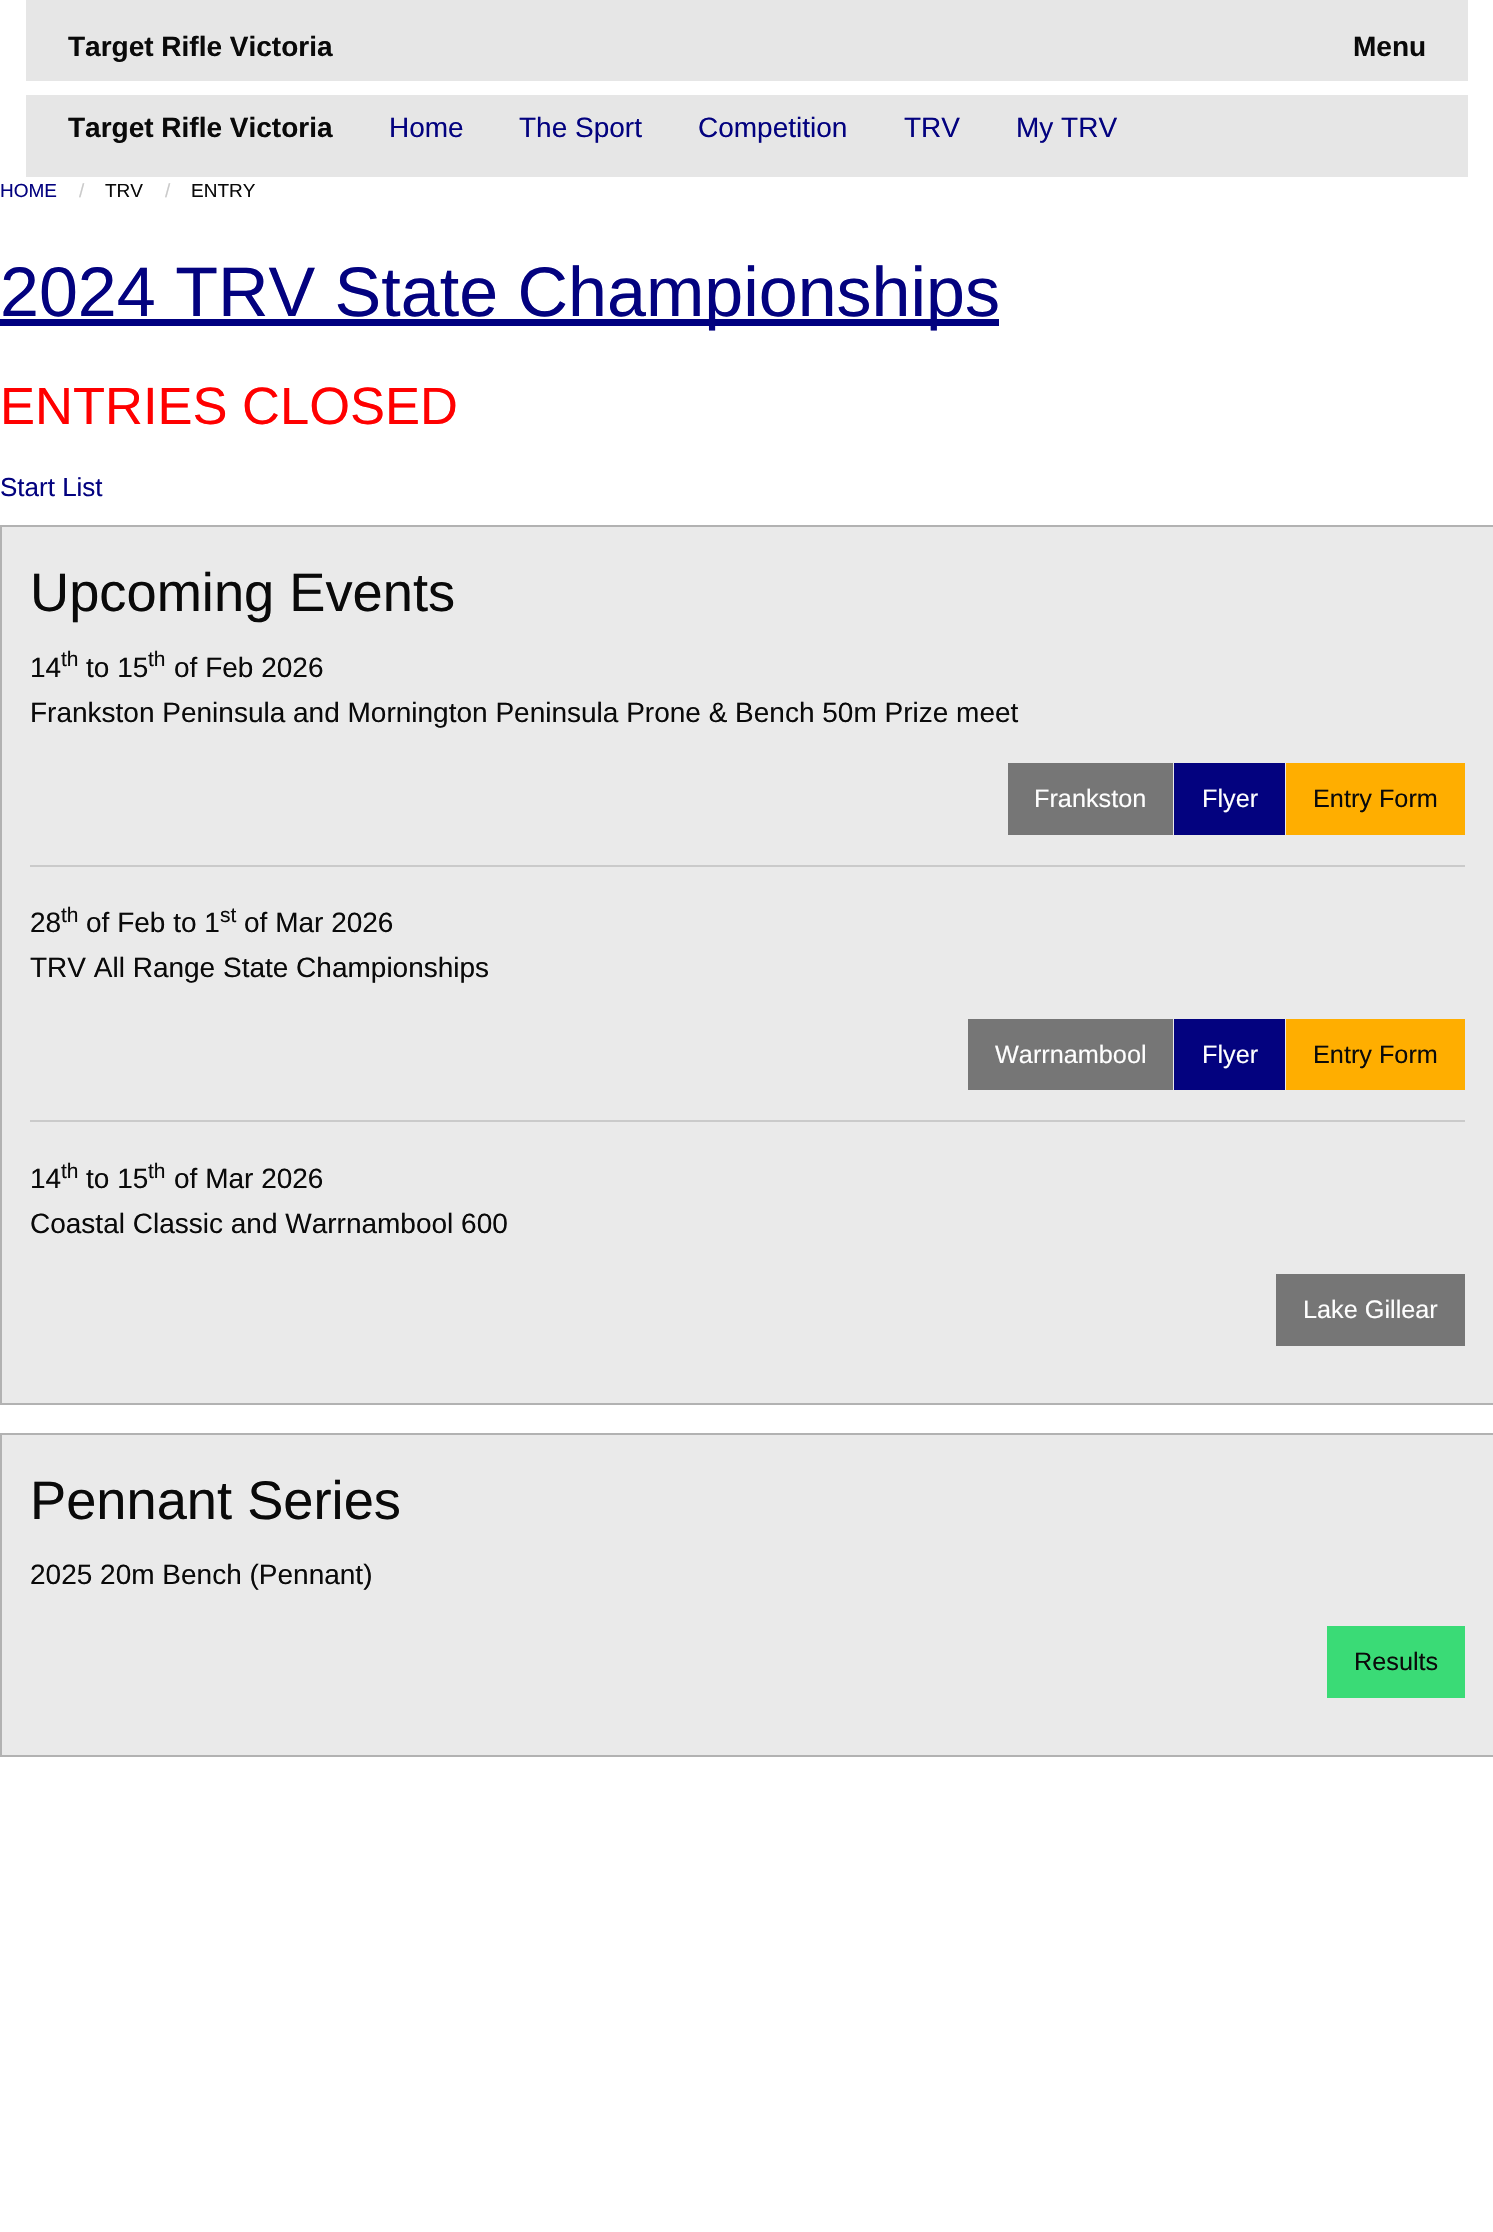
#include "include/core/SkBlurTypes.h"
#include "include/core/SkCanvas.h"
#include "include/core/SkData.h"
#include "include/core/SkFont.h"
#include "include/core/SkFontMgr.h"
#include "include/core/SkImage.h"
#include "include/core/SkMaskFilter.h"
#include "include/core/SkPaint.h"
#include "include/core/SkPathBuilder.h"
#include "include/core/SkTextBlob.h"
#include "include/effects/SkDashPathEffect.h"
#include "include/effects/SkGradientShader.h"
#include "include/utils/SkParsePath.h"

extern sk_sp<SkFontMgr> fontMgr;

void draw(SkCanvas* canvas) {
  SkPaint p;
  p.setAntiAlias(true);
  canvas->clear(SK_ColorWHITE);
  p.setColor(SkColorSetRGB(230, 230, 230));
  canvas->drawRect(SkRect::MakeLTRB(26, 0, 1468, 81), p);
  canvas->drawRect(SkRect::MakeLTRB(26, 95, 1468, 177), p);
  p.setColor(SkColorSetRGB(0, 0, 128));
  canvas->drawRect(SkRect::MakeLTRB(0, 319, 999, 326), p);
  p.setColor(SkColorSetRGB(234, 234, 234));
  canvas->drawRect(SkRect::MakeLTRB(1, 526, 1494, 1404), p);
  p.setStyle(SkPaint::kStroke_Style);
  p.setStrokeWidth(2);
  p.setColor(SkColorSetRGB(178, 178, 178));
  canvas->drawRect(SkRect::MakeLTRB(1, 526, 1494, 1404), p);
  p.setStyle(SkPaint::kFill_Style);
  p.setColor(SkColorSetRGB(118, 118, 118));
  canvas->drawRect(SkRect::MakeLTRB(1008, 763, 1173, 835), p);
  p.setColor(SkColorSetRGB(3, 2, 127));
  canvas->drawRect(SkRect::MakeLTRB(1174, 763, 1285, 835), p);
  p.setColor(SkColorSetRGB(255, 174, 0));
  canvas->drawRect(SkRect::MakeLTRB(1286, 763, 1465, 835), p);
  p.setColor(SkColorSetRGB(202, 202, 202));
  canvas->drawRect(SkRect::MakeLTRB(30, 865, 1465, 867), p);
  p.setColor(SkColorSetRGB(118, 118, 118));
  canvas->drawRect(SkRect::MakeLTRB(968, 1019, 1173, 1090), p);
  p.setColor(SkColorSetRGB(3, 2, 127));
  canvas->drawRect(SkRect::MakeLTRB(1174, 1019, 1285, 1090), p);
  p.setColor(SkColorSetRGB(255, 174, 0));
  canvas->drawRect(SkRect::MakeLTRB(1286, 1019, 1465, 1090), p);
  p.setColor(SkColorSetRGB(202, 202, 202));
  canvas->drawRect(SkRect::MakeLTRB(30, 1120, 1465, 1122), p);
  p.setColor(SkColorSetRGB(118, 118, 118));
  canvas->drawRect(SkRect::MakeLTRB(1276, 1274, 1465, 1346), p);
  p.setColor(SkColorSetRGB(234, 234, 234));
  canvas->drawRect(SkRect::MakeLTRB(1, 1434, 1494, 1756), p);
  p.setStyle(SkPaint::kStroke_Style);
  p.setColor(SkColorSetRGB(178, 178, 178));
  canvas->drawRect(SkRect::MakeLTRB(1, 1434, 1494, 1756), p);
  p.setStyle(SkPaint::kFill_Style);
  p.setColor(SkColorSetRGB(58, 219, 118));
  canvas->drawRect(SkRect::MakeLTRB(1327, 1626, 1465, 1698), p);
  SkFont font1(fontMgr->matchFamilyStyle("Liberation Sans", SkFontStyle::Bold()), 28);
  font1.setSubpixel(true);
  p.setColor(SkColorSetRGB(10, 10, 10));
  canvas->drawString("Target Rifle Victoria", 68, 56, font1, p);
  canvas->drawString("Menu", 1353, 56, font1, p);
  canvas->drawString("Target Rifle Victoria", 68, 137, font1, p);
  SkFont font2(fontMgr->matchFamilyStyle("Liberation Sans", SkFontStyle::Normal()), 28);
  font2.setSubpixel(true);
  p.setColor(SkColorSetRGB(3, 2, 127));
  canvas->drawString("Home", 389, 137, font2, p);
  canvas->drawString("The Sport", 519, 137, font2, p);
  canvas->drawString("Competition", 698, 137, font2, p);
  canvas->drawString("TRV", 904, 137, font2, p);
  canvas->drawString("My TRV", 1016, 137, font2, p);
  SkFont font3(fontMgr->matchFamilyStyle("Liberation Sans", SkFontStyle::Normal()), 19);
  font3.setSubpixel(true);
  canvas->drawString("HOME", 0, 197, font3, p);
  p.setColor(SkColorSetRGB(202, 202, 202));
  canvas->drawString("/", 79, 197, font3, p);
  p.setColor(SkColorSetRGB(10, 10, 10));
  canvas->drawString("TRV", 105, 197, font3, p);
  p.setColor(SkColorSetRGB(202, 202, 202));
  canvas->drawString("/", 165, 197, font3, p);
  p.setColor(SkColorSetRGB(10, 10, 10));
  canvas->drawString("ENTRY", 191, 197, font3, p);
  SkFont font4(fontMgr->matchFamilyStyle("Liberation Sans", SkFontStyle::Normal()), 70);
  font4.setSubpixel(true);
  p.setColor(SkColorSetRGB(3, 2, 127));
  canvas->drawString("2024 TRV State Championships", 0, 316, font4, p);
  SkFont font5(fontMgr->matchFamilyStyle("Liberation Sans", SkFontStyle::Normal()), 52.5f);
  font5.setSubpixel(true);
  p.setColor(SkColorSetRGB(255, 0, 0));
  canvas->drawString("ENTRIES CLOSED", 0, 424, font5, p);
  SkFont font6(fontMgr->matchFamilyStyle("Liberation Sans", SkFontStyle::Normal()), 26);
  font6.setSubpixel(true);
  p.setColor(SkColorSetRGB(3, 2, 127));
  canvas->drawString("Start List", 0, 496, font6, p);
  SkFont font7(fontMgr->matchFamilyStyle("Liberation Sans", SkFontStyle::Normal()), 54.25f);
  font7.setSubpixel(true);
  p.setColor(SkColorSetRGB(10, 10, 10));
  canvas->drawString("Upcoming Events", 30, 611, font7, p);
  canvas->drawString("14", 30, 677, font2, p);
  SkFont font8(fontMgr->matchFamilyStyle("Liberation Sans", SkFontStyle::Normal()), 21);
  font8.setSubpixel(true);
  canvas->drawString("th", 61, 666, font8, p);
  canvas->drawString("to 15", 86, 677, font2, p);
  canvas->drawString("th", 148, 666, font8, p);
  canvas->drawString("of Feb 2026", 174, 677, font2, p);
  canvas->drawString("Frankston Peninsula and Mornington Peninsula Prone & Bench 50m Prize meet", 30, 722, font2, p);
  SkFont font9(fontMgr->matchFamilyStyle("Liberation Sans", SkFontStyle::Normal()), 25.25f);
  font9.setSubpixel(true);
  p.setColor(SkColorSetRGB(254, 254, 254));
  canvas->drawString("Frankston", 1034, 807, font9, p);
  canvas->drawString("Flyer", 1202, 807, font9, p);
  p.setColor(SkColorSetRGB(10, 10, 10));
  canvas->drawString("Entry Form", 1313, 807, font9, p);
  canvas->drawString("28", 30, 932, font2, p);
  canvas->drawString("th", 61, 922, font8, p);
  canvas->drawString("of Feb to 1", 86, 932, font2, p);
  canvas->drawString("st", 220, 922, font8, p);
  canvas->drawString("of Mar 2026", 244, 932, font2, p);
  canvas->drawString("TRV All Range State Championships", 30, 977, font2, p);
  p.setColor(SkColorSetRGB(254, 254, 254));
  canvas->drawString("Warrnambool", 995, 1063, font9, p);
  canvas->drawString("Flyer", 1202, 1063, font9, p);
  p.setColor(SkColorSetRGB(10, 10, 10));
  canvas->drawString("Entry Form", 1313, 1063, font9, p);
  canvas->drawString("14", 30, 1188, font2, p);
  canvas->drawString("th", 61, 1178, font8, p);
  canvas->drawString("to 15", 86, 1188, font2, p);
  canvas->drawString("th", 148, 1178, font8, p);
  canvas->drawString("of Mar 2026", 174, 1188, font2, p);
  canvas->drawString("Coastal Classic and Warrnambool 600", 30, 1233, font2, p);
  p.setColor(SkColorSetRGB(254, 254, 254));
  canvas->drawString("Lake Gillear", 1303, 1318, font9, p);
  p.setColor(SkColorSetRGB(10, 10, 10));
  canvas->drawString("Pennant Series", 30, 1519, font7, p);
  canvas->drawString("2025 20m Bench (Pennant)", 30, 1584, font2, p);
  canvas->drawString("Results", 1354, 1670, font9, p);
}
